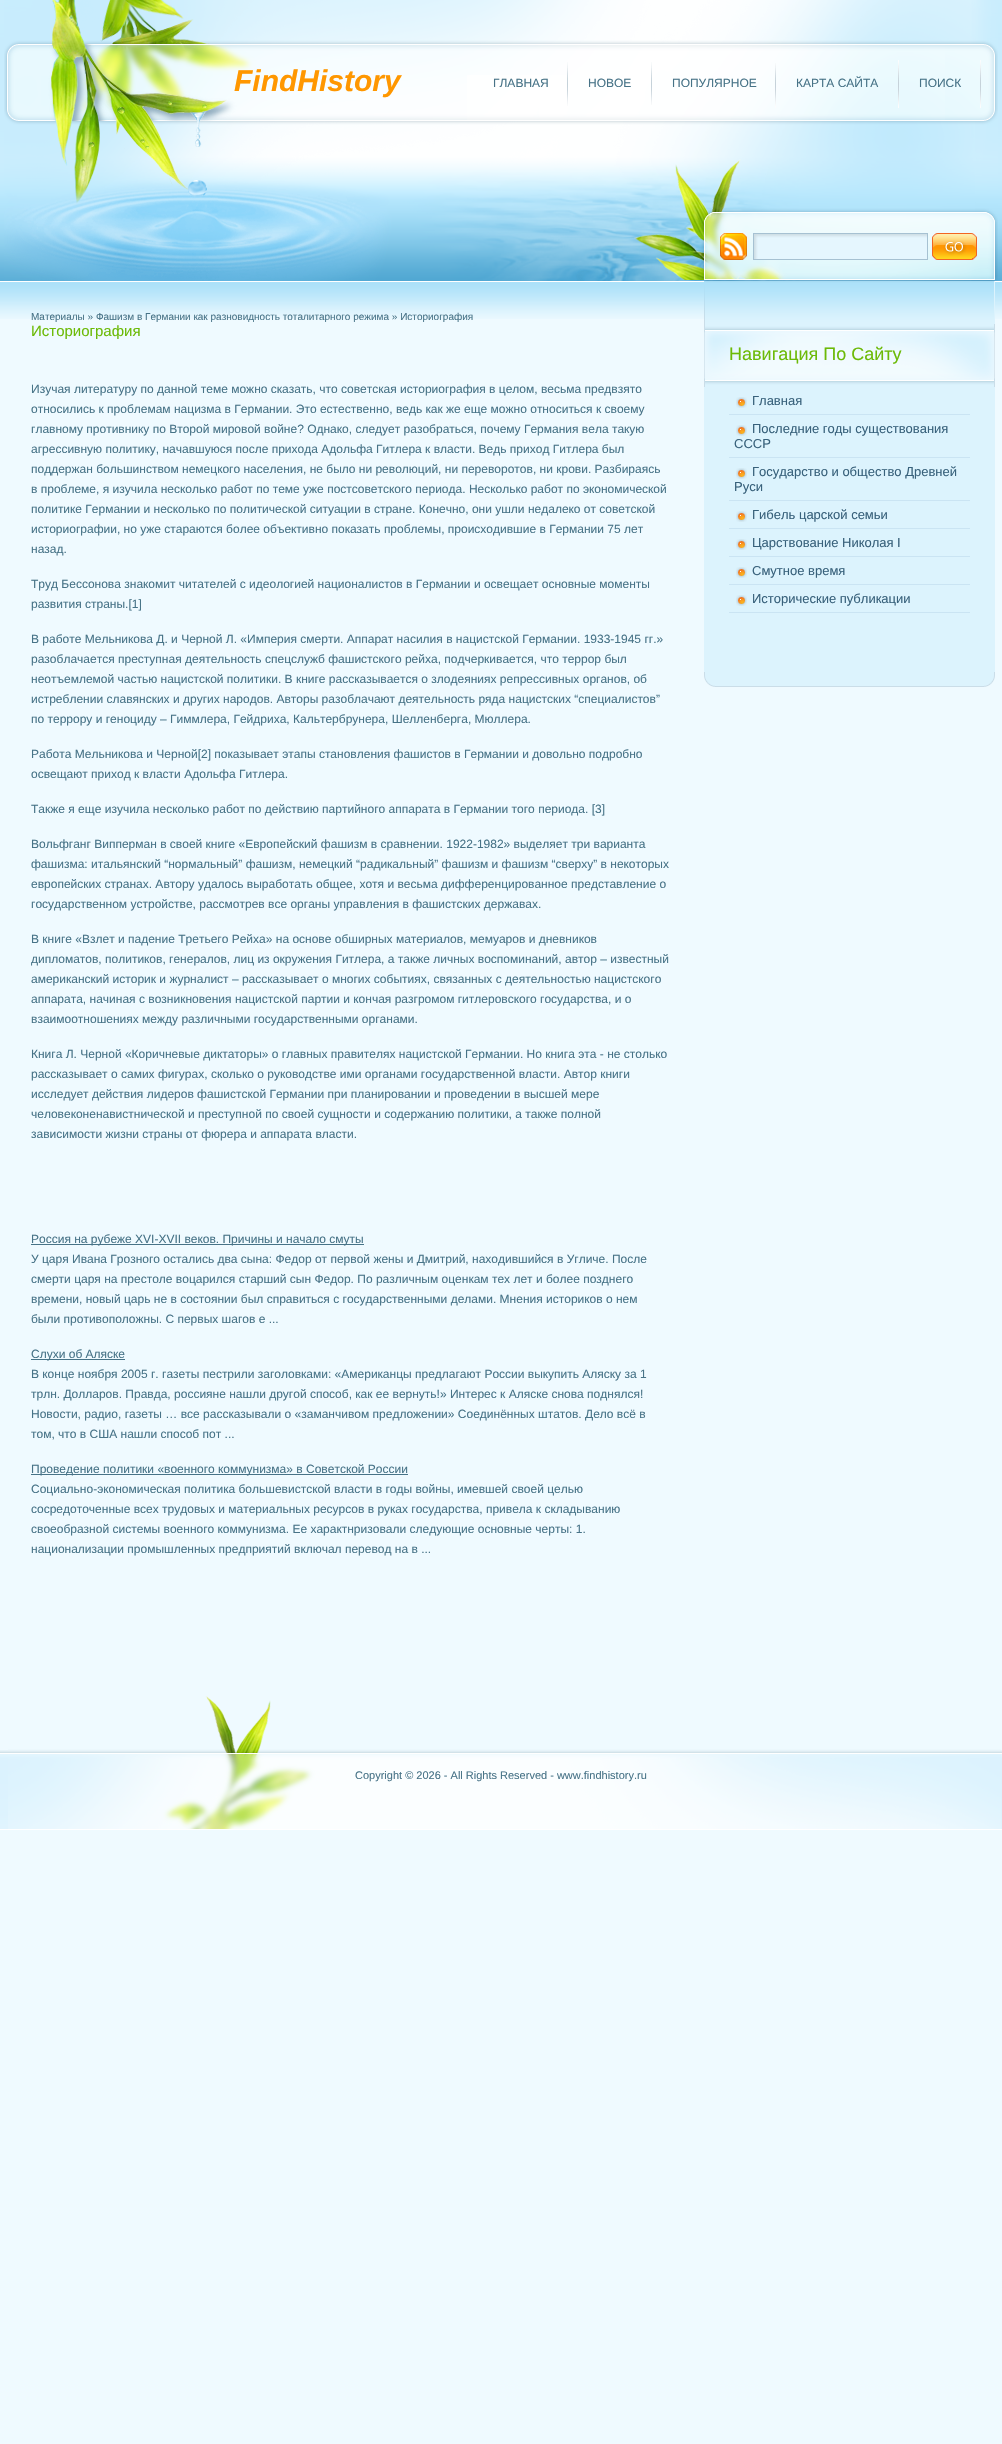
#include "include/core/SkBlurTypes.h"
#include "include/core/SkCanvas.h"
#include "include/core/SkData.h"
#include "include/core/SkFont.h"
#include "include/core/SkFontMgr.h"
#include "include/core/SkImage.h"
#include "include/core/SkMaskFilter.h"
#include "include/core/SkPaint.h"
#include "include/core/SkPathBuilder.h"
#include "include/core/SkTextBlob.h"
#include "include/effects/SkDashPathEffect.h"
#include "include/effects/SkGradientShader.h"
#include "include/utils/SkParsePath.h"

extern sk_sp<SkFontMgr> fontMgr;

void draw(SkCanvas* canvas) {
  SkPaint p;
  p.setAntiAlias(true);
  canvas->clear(SkColorSetRGB(239, 250, 255));
  canvas->drawImageRect(SkImages::DeferredFromEncodedData(SkData::MakeFromFileName("images/1.png")), SkRect::MakeLTRB(0, 0, 1002, 319), SkSamplingOptions());
  canvas->drawImageRect(SkImages::DeferredFromEncodedData(SkData::MakeFromFileName("images/2.png")), SkRect::MakeLTRB(0, 1750, 1002, 1830), SkSamplingOptions());
  canvas->drawImageRect(SkImages::DeferredFromEncodedData(SkData::MakeFromFileName("images/3.png")), SkRect::MakeLTRB(4, 0, 998, 281), SkSamplingOptions());
  canvas->drawImageRect(SkImages::DeferredFromEncodedData(SkData::MakeFromFileName("images/4.png")), SkRect::MakeLTRB(567, 62, 568, 106), SkSamplingOptions());
  canvas->drawImageRect(SkImages::DeferredFromEncodedData(SkData::MakeFromFileName("images/5.png")), SkRect::MakeLTRB(651, 62, 652, 105), SkSamplingOptions());
  canvas->drawImageRect(SkImages::DeferredFromEncodedData(SkData::MakeFromFileName("images/6.png")), SkRect::MakeLTRB(775, 63, 776, 108), SkSamplingOptions());
  canvas->drawImageRect(SkImages::DeferredFromEncodedData(SkData::MakeFromFileName("images/7.png")), SkRect::MakeLTRB(898, 60, 899, 108), SkSamplingOptions());
  canvas->drawImageRect(SkImages::DeferredFromEncodedData(SkData::MakeFromFileName("images/7.png")), SkRect::MakeLTRB(980, 60, 981, 108), SkSamplingOptions());
  canvas->drawImageRect(SkImages::DeferredFromEncodedData(SkData::MakeFromFileName("images/8.png")), SkRect::MakeLTRB(720, 233, 747, 260), SkSamplingOptions());
  canvas->drawImageRect(SkImages::DeferredFromEncodedData(SkData::MakeFromFileName("images/9.png")), SkRect::MakeLTRB(932, 233, 977, 260), SkSamplingOptions());
  p.setColor(SkColorSetRGB(71, 115, 135));
  canvas->drawRect(SkRect::MakeLTRB(31, 1244, 364, 1245), p);
  canvas->drawRect(SkRect::MakeLTRB(31, 1359, 125, 1360), p);
  canvas->drawRect(SkRect::MakeLTRB(31, 1474, 408, 1475), p);
  p.setColor(SkColorSetRGB(220, 243, 253));
  canvas->drawRect(SkRect::MakeLTRB(704, 281, 995, 672), p);
  canvas->drawImageRect(SkImages::DeferredFromEncodedData(SkData::MakeFromFileName("images/10.png")), SkRect::MakeLTRB(704, 672, 995, 687), SkSamplingOptions());
  canvas->drawImageRect(SkImages::DeferredFromEncodedData(SkData::MakeFromFileName("images/11.png")), SkRect::MakeLTRB(704, 281, 994, 324), SkSamplingOptions());
  canvas->drawImageRect(SkImages::DeferredFromEncodedData(SkData::MakeFromFileName("images/12.png")), SkRect::MakeLTRB(704, 324, 995, 387), SkSamplingOptions());
  p.setColor(SkColorSetRGB(202, 228, 243));
  canvas->drawRect(SkRect::MakeLTRB(729, 414, 970, 415), p);
  canvas->drawImageRect(SkImages::DeferredFromEncodedData(SkData::MakeFromFileName("images/13.png")), SkRect::MakeLTRB(736, 397, 747, 408), SkSamplingOptions());
  canvas->drawRect(SkRect::MakeLTRB(729, 457, 970, 458), p);
  canvas->drawImageRect(SkImages::DeferredFromEncodedData(SkData::MakeFromFileName("images/13.png")), SkRect::MakeLTRB(736, 425, 747, 436), SkSamplingOptions());
  canvas->drawRect(SkRect::MakeLTRB(729, 500, 970, 501), p);
  canvas->drawImageRect(SkImages::DeferredFromEncodedData(SkData::MakeFromFileName("images/13.png")), SkRect::MakeLTRB(736, 468, 747, 479), SkSamplingOptions());
  canvas->drawRect(SkRect::MakeLTRB(729, 528, 970, 529), p);
  canvas->drawImageRect(SkImages::DeferredFromEncodedData(SkData::MakeFromFileName("images/13.png")), SkRect::MakeLTRB(736, 511, 747, 522), SkSamplingOptions());
  canvas->drawRect(SkRect::MakeLTRB(729, 556, 970, 557), p);
  canvas->drawImageRect(SkImages::DeferredFromEncodedData(SkData::MakeFromFileName("images/13.png")), SkRect::MakeLTRB(736, 539, 747, 550), SkSamplingOptions());
  canvas->drawRect(SkRect::MakeLTRB(729, 584, 970, 585), p);
  canvas->drawImageRect(SkImages::DeferredFromEncodedData(SkData::MakeFromFileName("images/13.png")), SkRect::MakeLTRB(736, 567, 747, 578), SkSamplingOptions());
  canvas->drawRect(SkRect::MakeLTRB(729, 612, 970, 613), p);
  canvas->drawImageRect(SkImages::DeferredFromEncodedData(SkData::MakeFromFileName("images/13.png")), SkRect::MakeLTRB(736, 595, 747, 606), SkSamplingOptions());
  canvas->drawImageRect(SkImages::DeferredFromEncodedData(SkData::MakeFromFileName("images/14.png")), SkRect::MakeLTRB(8, 1696, 1001, 1829), SkSamplingOptions());
  SkFont font1(fontMgr->matchFamilyStyle("Liberation Sans", SkFontStyle::BoldItalic()), 30);
  font1.setSubpixel(true);
  p.setColor(SkColorSetRGB(255, 151, 0));
  canvas->drawString("FindHistory", 234, 91, font1, p);
  SkFont font2(fontMgr->matchFamilyStyle("Liberation Sans", SkFontStyle::Normal()), 12);
  font2.setSubpixel(true);
  p.setColor(SkColorSetRGB(71, 115, 135));
  canvas->drawString("ГЛАВНАЯ", 493, 87, font2, p);
  canvas->drawString("НОВОЕ", 588, 87, font2, p);
  canvas->drawString("ПОПУЛЯРНОЕ", 672, 87, font2, p);
  canvas->drawString("КАРТА САЙТА", 796, 87, font2, p);
  canvas->drawString("ПОИСК", 919, 87, font2, p);
  SkFont font3(fontMgr->matchFamilyStyle("Liberation Sans", SkFontStyle::Normal()), 10);
  font3.setSubpixel(true);
  canvas->drawString("Материалы » Фашизм в Германии как разновидность тоталитарного режима » Историография", 31, 320, font3, p);
  SkFont font4(fontMgr->matchFamilyStyle("Liberation Sans", SkFontStyle::Normal()), 15);
  font4.setSubpixel(true);
  p.setColor(SkColorSetRGB(108, 186, 7));
  canvas->drawString("Историография", 31, 336, font4, p);
  p.setColor(SkColorSetRGB(71, 115, 135));
  canvas->drawString("Изучая литературу по данной теме можно сказать, что советская историография в целом, весьма предвзято", 31, 393, font2, p);
  canvas->drawString("относились к проблемам нацизма в Германии. Это естественно, ведь как же еще можно относиться к своему", 31, 413, font2, p);
  canvas->drawString("главному противнику по Второй мировой войне? Однако, следует разобраться, почему Германия вела такую", 31, 433, font2, p);
  canvas->drawString("агрессивную политику, начавшуюся после прихода Адольфа Гитлера к власти. Ведь приход Гитлера был", 31, 453, font2, p);
  canvas->drawString("поддержан большинством немецкого населения, не было ни революций, ни переворотов, ни крови. Разбираясь", 31, 473, font2, p);
  canvas->drawString("в проблеме, я изучила несколько работ по теме уже постсоветского периода. Несколько работ по экономической", 31, 493, font2, p);
  canvas->drawString("политике Германии и несколько по политической ситуации в стране. Конечно, они ушли недалеко от советской", 31, 513, font2, p);
  canvas->drawString("историографии, но уже стараются более объективно показать проблемы, происходившие в Германии 75 лет", 31, 533, font2, p);
  canvas->drawString("назад.", 31, 553, font2, p);
  canvas->drawString("Труд Бессонова знакомит читателей с идеологией националистов в Германии и освещает основные моменты", 31, 588, font2, p);
  canvas->drawString("развития страны.[1]", 31, 608, font2, p);
  canvas->drawString("В работе Мельникова Д. и Черной Л. «Империя смерти. Аппарат насилия в нацистской Германии. 1933-1945 гг.»", 31, 643, font2, p);
  canvas->drawString("разоблачается преступная деятельность спецслужб фашистского рейха, подчеркивается, что террор был", 31, 663, font2, p);
  canvas->drawString("неотъемлемой частью нацистской политики. В книге рассказывается о злодеяниях репрессивных органов, об", 31, 683, font2, p);
  canvas->drawString("истреблении славянских и других народов. Авторы разоблачают деятельность ряда нацистских “специалистов”", 31, 703, font2, p);
  canvas->drawString("по террору и геноциду – Гиммлера, Гейдриха, Кальтербрунера, Шелленберга, Мюллера.", 31, 723, font2, p);
  canvas->drawString("Работа Мельникова и Черной[2] показывает этапы становления фашистов в Германии и довольно подробно", 31, 758, font2, p);
  canvas->drawString("освещают приход к власти Адольфа Гитлера.", 31, 778, font2, p);
  canvas->drawString("Также я еще изучила несколько работ по действию партийного аппарата в Германии того периода. [3]", 31, 813, font2, p);
  canvas->drawString("Вольфганг Випперман в своей книге «Европейский фашизм в сравнении. 1922-1982» выделяет три варианта", 31, 848, font2, p);
  canvas->drawString("фашизма: итальянский “нормальный” фашизм, немецкий “радикальный” фашизм и фашизм “сверху” в некоторых", 31, 868, font2, p);
  canvas->drawString("европейских странах. Автору удалось выработать общее, хотя и весьма дифференцированное представление о", 31, 888, font2, p);
  canvas->drawString("государственном устройстве, рассмотрев все органы управления в фашистских державах.", 31, 908, font2, p);
  canvas->drawString("В книге «Взлет и падение Третьего Рейха» на основе обширных материалов, мемуаров и дневников", 31, 943, font2, p);
  canvas->drawString("дипломатов, политиков, генералов, лиц из окружения Гитлера, а также личных воспоминаний, автор – известный", 31, 963, font2, p);
  canvas->drawString("американский историк и журналист – рассказывает о многих событиях, связанных с деятельностью нацистского", 31, 983, font2, p);
  canvas->drawString("аппарата, начиная с возникновения нацистской партии и кончая разгромом гитлеровского государства, и о", 31, 1003, font2, p);
  canvas->drawString("взаимоотношениях между различными государственными органами.", 31, 1023, font2, p);
  canvas->drawString("Книга Л. Черной «Коричневые диктаторы» о главных правителях нацистской Германии. Но книга эта - не столько", 31, 1058, font2, p);
  canvas->drawString("рассказывает о самих фигурах, сколько о руководстве ими органами государственной власти. Автор книги", 31, 1078, font2, p);
  canvas->drawString("исследует действия лидеров фашистской Германии при планировании и проведении в высшей мере", 31, 1098, font2, p);
  canvas->drawString("человеконенавистнической и преступной по своей сущности и содержанию политики, а также полной", 31, 1118, font2, p);
  canvas->drawString("зависимости жизни страны от фюрера и аппарата власти.", 31, 1138, font2, p);
  canvas->drawString("Россия на рубеже XVI-XVII веков. Причины и начало смуты", 31, 1243, font2, p);
  canvas->drawString("У царя Ивана Грозного остались два сына: Федор от первой жены и Дмитрий, находившийся в Угличе. После", 31, 1263, font2, p);
  canvas->drawString("смерти царя на престоле воцарился старший сын Федор. По различным оценкам тех лет и более позднего", 31, 1283, font2, p);
  canvas->drawString("времени, новый царь не в состоянии был справиться с государственными делами. Мнения историков о нем", 31, 1303, font2, p);
  canvas->drawString("были противоположны. С первых шагов е ...", 31, 1323, font2, p);
  canvas->drawString("Слухи об Аляске", 31, 1358, font2, p);
  canvas->drawString("В конце ноября 2005 г. газеты пестрили заголовками: «Американцы предлагают России выкупить Аляску за 1", 31, 1378, font2, p);
  canvas->drawString("трлн. Долларов. Правда, россияне нашли другой способ, как ее вернуть!» Интерес к Аляске снова поднялся!", 31, 1398, font2, p);
  canvas->drawString("Новости, радио, газеты … все рассказывали о «заманчивом предложении» Соединённых штатов. Дело всё в", 31, 1418, font2, p);
  canvas->drawString("том, что в США нашли способ пот ...", 31, 1438, font2, p);
  canvas->drawString("Проведение политики «военного коммунизма» в Советской России", 31, 1473, font2, p);
  canvas->drawString("Социально-экономическая политика большевистской власти в годы войны, имевшей своей целью", 31, 1493, font2, p);
  canvas->drawString("сосредоточенные всех трудовых и материальных ресурсов в руках государства, привела к складыванию", 31, 1513, font2, p);
  canvas->drawString("своеобразной системы военного коммунизма. Ее характнризовали следующие основные черты: 1.", 31, 1533, font2, p);
  canvas->drawString("национализации промышленных предприятий включал перевод на в ...", 31, 1553, font2, p);
  SkFont font5(fontMgr->matchFamilyStyle("Liberation Sans", SkFontStyle::Normal()), 18);
  font5.setSubpixel(true);
  p.setColor(SkColorSetRGB(108, 186, 7));
  canvas->drawString("Навигация По Сайту", 729, 360, font5, p);
  SkFont font6(fontMgr->matchFamilyStyle("Liberation Sans", SkFontStyle::Normal()), 13);
  font6.setSubpixel(true);
  p.setColor(SkColorSetRGB(56, 97, 123));
  canvas->drawString("Главная", 752, 405, font6, p);
  canvas->drawString("Последние годы существования", 752, 433, font6, p);
  canvas->drawString("СССР", 734, 448, font6, p);
  canvas->drawString("Государство и общество Древней", 752, 476, font6, p);
  canvas->drawString("Руси", 734, 491, font6, p);
  canvas->drawString("Гибель царской семьи", 752, 519, font6, p);
  canvas->drawString("Царствование Николая I", 752, 547, font6, p);
  canvas->drawString("Смутное время", 752, 575, font6, p);
  canvas->drawString("Исторические публикации", 752, 603, font6, p);
  SkFont font7(fontMgr->matchFamilyStyle("Liberation Sans", SkFontStyle::Normal()), 11);
  font7.setSubpixel(true);
  p.setColor(SkColorSetRGB(71, 115, 135));
  canvas->drawString("Copyright © 2026 - All Rights Reserved - www.findhistory.ru", 355, 1779, font7, p);
}
